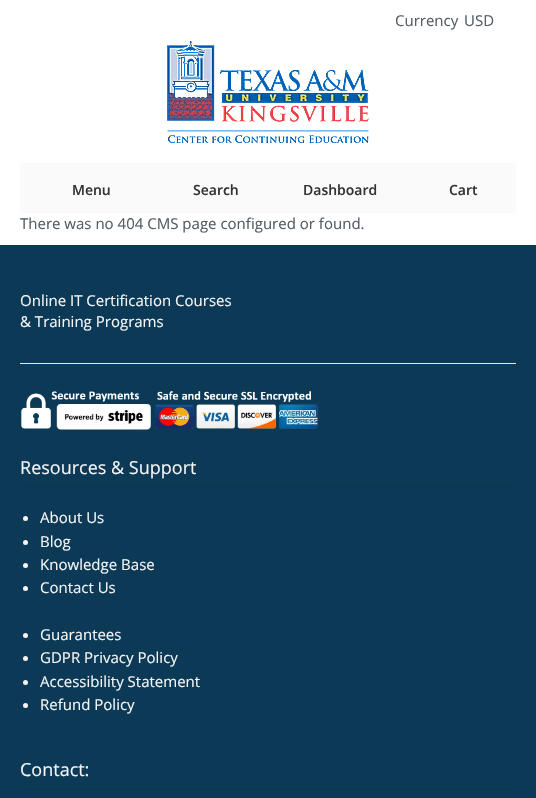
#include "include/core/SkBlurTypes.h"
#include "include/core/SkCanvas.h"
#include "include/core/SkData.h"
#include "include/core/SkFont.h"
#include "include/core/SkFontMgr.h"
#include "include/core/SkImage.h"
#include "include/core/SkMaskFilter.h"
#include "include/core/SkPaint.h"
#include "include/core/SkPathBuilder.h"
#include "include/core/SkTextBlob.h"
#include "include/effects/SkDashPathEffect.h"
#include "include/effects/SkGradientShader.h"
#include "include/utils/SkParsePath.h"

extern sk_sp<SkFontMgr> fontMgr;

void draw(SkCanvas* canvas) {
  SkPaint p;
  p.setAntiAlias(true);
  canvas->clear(SK_ColorWHITE);
  canvas->drawImageRect(SkImages::DeferredFromEncodedData(SkData::MakeFromFileName("images/1.png")), SkRect::MakeLTRB(167, 41, 369, 143), SkSamplingOptions());
  p.setColor(SkColorSetRGB(250, 250, 250));
  canvas->drawRect(SkRect::MakeLTRB(20, 163, 516, 213), p);
  p.setColor(SkColorSetRGB(11, 57, 86));
  canvas->drawRect(SkRect::MakeLTRB(0, 245, 536, 798), p);
  p.setColor(SkColorSetRGB(229, 229, 229));
  canvas->drawRect(SkRect::MakeLTRB(20, 363, 516, 364), p);
  canvas->drawImageRect(SkImages::DeferredFromEncodedData(SkData::MakeFromFileName("images/2.png")), SkRect::MakeLTRB(21, 391, 318, 430), SkSamplingOptions());
  p.setColor(SkColorSetRGB(10, 54, 82));
  canvas->drawRect(SkRect::MakeLTRB(20, 486, 516, 487), p);
  p.setColor(SkColorSetRGB(245, 245, 245));
  canvas->drawCircle(25.5f, 518.5f, 2.5f, p);
  canvas->drawCircle(25.5f, 542.5f, 2.5f, p);
  canvas->drawCircle(25.5f, 565.5f, 2.5f, p);
  canvas->drawCircle(25.5f, 588.5f, 2.5f, p);
  canvas->drawCircle(25.5f, 635.5f, 2.5f, p);
  canvas->drawCircle(25.5f, 658.5f, 2.5f, p);
  canvas->drawCircle(25.5f, 682.5f, 2.5f, p);
  canvas->drawCircle(25.5f, 705.5f, 2.5f, p);
  p.setColor(SkColorSetRGB(10, 54, 82));
  canvas->drawRect(SkRect::MakeLTRB(20, 789, 516, 790), p);
  SkFont font1(fontMgr->matchFamilyStyle("Open Sans", SkFontStyle::Normal()), 15);
  font1.setSubpixel(true);
  p.setColor(SkColorSetRGB(82, 92, 101));
  canvas->drawString("Currency", 395, 26, font1, p);
  canvas->drawString("USD", 464, 26, font1, p);
  SkFont font2(fontMgr->matchFamilyStyle("Open Sans", SkFontStyle(600, SkFontStyle::kNormal_Width, SkFontStyle::kUpright_Slant)), 14);
  font2.setSubpixel(true);
  p.setColor(SkColorSetRGB(51, 51, 51));
  canvas->drawString("Menu", 72, 195, font2, p);
  canvas->drawString("Search", 193, 195, font2, p);
  canvas->drawString("Dashboard", 303, 195, font2, p);
  canvas->drawString("Cart", 449, 195, font2, p);
  p.setColor(SkColorSetRGB(82, 92, 101));
  canvas->drawString("There was no 404 CMS page configured or found.", 20, 229, font1, p);
  p.setColor(SkColorSetRGB(245, 245, 245));
  canvas->drawString("Online IT Certification Courses", 20, 306, font1, p);
  canvas->drawString("& Training Programs", 20, 327, font1, p);
  SkFont font3(fontMgr->matchFamilyStyle("Open Sans", SkFontStyle::Normal()), 18);
  font3.setSubpixel(true);
  canvas->drawString("Resources & Support", 20, 474, font3, p);
  canvas->drawString("About Us", 40, 523, font1, p);
  canvas->drawString("Blog", 40, 547, font1, p);
  canvas->drawString("Knowledge Base", 40, 570, font1, p);
  canvas->drawString("Contact Us", 40, 593, font1, p);
  canvas->drawString("Guarantees", 40, 640, font1, p);
  canvas->drawString("GDPR Privacy Policy", 40, 663, font1, p);
  canvas->drawString("Accessibility Statement", 40, 687, font1, p);
  canvas->drawString("Refund Policy", 40, 710, font1, p);
  canvas->drawString("Contact:", 20, 776, font3, p);
}
